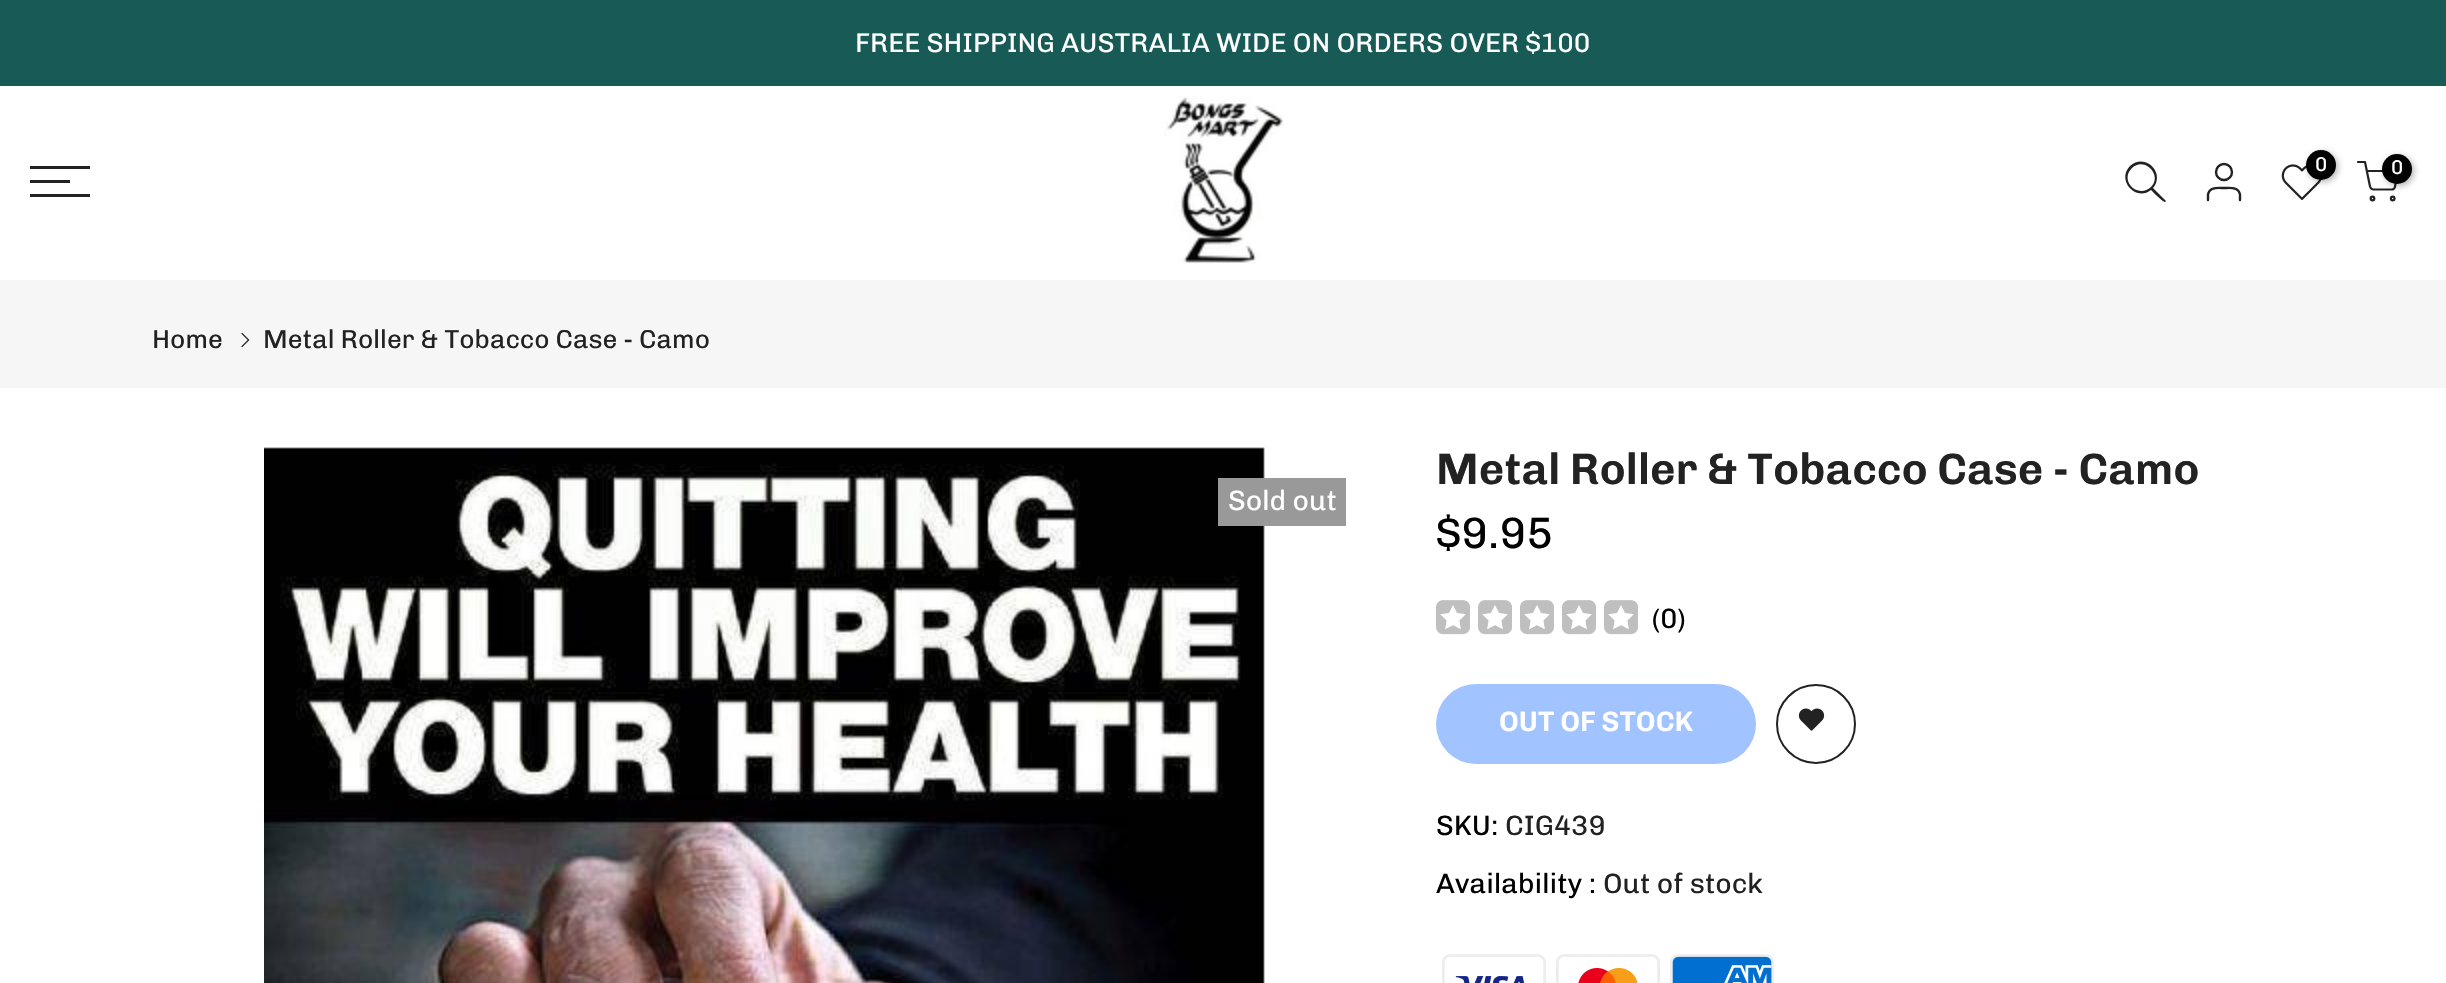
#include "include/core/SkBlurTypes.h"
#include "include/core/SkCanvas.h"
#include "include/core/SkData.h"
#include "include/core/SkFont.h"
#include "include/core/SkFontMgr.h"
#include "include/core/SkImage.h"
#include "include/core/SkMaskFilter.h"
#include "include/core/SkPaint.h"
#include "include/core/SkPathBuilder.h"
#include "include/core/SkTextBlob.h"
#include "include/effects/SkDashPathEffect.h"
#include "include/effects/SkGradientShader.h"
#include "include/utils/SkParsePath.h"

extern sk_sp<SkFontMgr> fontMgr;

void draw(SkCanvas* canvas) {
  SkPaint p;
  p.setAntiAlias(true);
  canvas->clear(SK_ColorWHITE);
  p.setColor(SkColorSetRGB(24, 90, 86));
  canvas->drawRect(SkRect::MakeLTRB(0, 0, 2446, 86), p);
  p.setColor(SkColorSetRGB(34, 34, 34));
  canvas->drawRect(SkRect::MakeLTRB(30, 166, 90, 169), p);
  canvas->drawRect(SkRect::MakeLTRB(30, 180, 70, 183), p);
  canvas->drawRect(SkRect::MakeLTRB(30, 194, 90, 197), p);
  canvas->drawImageRect(SkImages::DeferredFromEncodedData(SkData::MakeFromFileName("images/1.png")), SkRect::MakeLTRB(1164, 96, 1284, 264), SkSamplingOptions());
  canvas->drawPath(SkPathBuilder(SkPathFillType::kEvenOdd).moveTo(2151, 187).cubicTo(2138, 199, 2119, 181, 2132, 168).cubicTo(2144, 156, 2163, 175, 2151, 187).close().moveTo(2151, 190).cubicTo(2136, 202, 2116, 180, 2130, 166).cubicTo(2145, 152, 2166, 173, 2153, 188).lineTo(2166, 201).lineTo(2165, 202).cubicTo(2164, 203, 2153, 192, 2151, 190).close().detach(), p);
  p.setStyle(SkPaint::kStroke_Style);
  p.setStrokeWidth(2.4f);
  canvas->drawCircle(2224, 172, 8, p);
  p.setStrokeCap(SkPaint::kRound_Cap);
  p.setStrokeJoin(SkPaint::kRound_Join);
  canvas->drawPath(SkPathBuilder().moveTo(2240, 200).lineTo(2240, 194.5f).cubicTo(2238.5f, 186.5f, 2230, 188, 2224, 188).cubicTo(2218, 188, 2209.5f, 186.5f, 2208, 194.5f).lineTo(2208, 200).detach(), p);
  canvas->drawImageRect(SkImages::DeferredFromEncodedData(SkData::MakeFromFileName("images/2.png")), SkRect::MakeLTRB(2281, 164, 2322, 200), SkSamplingOptions());
  p.setStyle(SkPaint::kFill_Style);
  p.setColor(SkColorSetARGB(77, 0, 0, 0));
  p.setMaskFilter(SkMaskFilter::MakeBlur(kNormal_SkBlurStyle, 3));
  canvas->drawRoundRect(SkRect::MakeLTRB(2308, 152, 2338, 182), 15, 15, p);
  p.setMaskFilter(nullptr);
  p.setColor(SK_ColorBLACK);
  canvas->drawCircle(2321, 165, 15, p);
  p.setStyle(SkPaint::kStroke_Style);
  p.setStrokeWidth(2.2f);
  p.setColor(SkColorSetRGB(34, 34, 34));
  canvas->drawPath(SkPathBuilder().moveTo(2358, 162).lineTo(2365, 162).lineTo(2370, 186.5f).cubicTo(2370.5f, 188, 2372, 189.5f, 2373.5f, 189.5f).lineTo(2391.5f, 189.5f).cubicTo(2393.5f, 189.5f, 2395, 188, 2395, 186.5f).lineTo(2398, 171).lineTo(2367, 171).detach(), p);
  p.setStrokeCap(SkPaint::kButt_Cap);
  p.setStrokeJoin(SkPaint::kMiter_Join);
  canvas->drawCircle(2372.5f, 198.5f, 1.8f, p);
  canvas->drawCircle(2392.7f, 198.5f, 1.8f, p);
  p.setStyle(SkPaint::kFill_Style);
  p.setColor(SkColorSetARGB(77, 0, 0, 0));
  p.setMaskFilter(SkMaskFilter::MakeBlur(kNormal_SkBlurStyle, 3));
  canvas->drawRoundRect(SkRect::MakeLTRB(2384, 156, 2414, 186), 15, 15, p);
  p.setMaskFilter(nullptr);
  p.setColor(SK_ColorBLACK);
  canvas->drawCircle(2397, 169, 15, p);
  p.setColor(SkColorSetRGB(246, 246, 246));
  canvas->drawRect(SkRect::MakeLTRB(0, 280, 2446, 388), p);
  canvas->drawImageRect(SkImages::DeferredFromEncodedData(SkData::MakeFromFileName("images/3.png")), SkRect::MakeLTRB(241, 332, 250, 348), SkSamplingOptions());
  canvas->drawImageRect(SkImages::DeferredFromEncodedData(SkData::MakeFromFileName("images/4.png")), SkRect::MakeLTRB(264, 447, 1265, 983), SkSamplingOptions());
  p.setColor(SkColorSetRGB(153, 153, 153));
  canvas->drawRect(SkRect::MakeLTRB(1218, 478, 1346, 526), p);
  canvas->drawImageRect(SkImages::DeferredFromEncodedData(SkData::MakeFromFileName("images/5.png")), SkRect::MakeLTRB(1436, 600, 1470, 635), SkSamplingOptions());
  canvas->drawImageRect(SkImages::DeferredFromEncodedData(SkData::MakeFromFileName("images/6.png")), SkRect::MakeLTRB(1440, 605, 1466, 630), SkSamplingOptions());
  canvas->drawImageRect(SkImages::DeferredFromEncodedData(SkData::MakeFromFileName("images/5.png")), SkRect::MakeLTRB(1478, 600, 1512, 635), SkSamplingOptions());
  canvas->drawImageRect(SkImages::DeferredFromEncodedData(SkData::MakeFromFileName("images/6.png")), SkRect::MakeLTRB(1482, 605, 1508, 630), SkSamplingOptions());
  canvas->drawImageRect(SkImages::DeferredFromEncodedData(SkData::MakeFromFileName("images/5.png")), SkRect::MakeLTRB(1520, 600, 1554, 635), SkSamplingOptions());
  canvas->drawImageRect(SkImages::DeferredFromEncodedData(SkData::MakeFromFileName("images/6.png")), SkRect::MakeLTRB(1524, 605, 1550, 630), SkSamplingOptions());
  canvas->drawImageRect(SkImages::DeferredFromEncodedData(SkData::MakeFromFileName("images/5.png")), SkRect::MakeLTRB(1562, 600, 1596, 635), SkSamplingOptions());
  canvas->drawImageRect(SkImages::DeferredFromEncodedData(SkData::MakeFromFileName("images/6.png")), SkRect::MakeLTRB(1566, 605, 1592, 630), SkSamplingOptions());
  canvas->drawImageRect(SkImages::DeferredFromEncodedData(SkData::MakeFromFileName("images/5.png")), SkRect::MakeLTRB(1604, 600, 1638, 635), SkSamplingOptions());
  canvas->drawImageRect(SkImages::DeferredFromEncodedData(SkData::MakeFromFileName("images/6.png")), SkRect::MakeLTRB(1608, 605, 1634, 630), SkSamplingOptions());
  p.setColor(SkColorSetRGB(161, 195, 255));
  canvas->drawRoundRect(SkRect::MakeLTRB(1436, 684, 1756, 764), 40, 40, p);
  p.setStyle(SkPaint::kStroke_Style);
  p.setStrokeWidth(2);
  p.setColor(SkColorSetRGB(34, 34, 34));
  canvas->drawCircle(1816, 724, 39, p);
  canvas->drawImageRect(SkImages::DeferredFromEncodedData(SkData::MakeFromFileName("images/7.png")), SkRect::MakeLTRB(1798, 708, 1825, 731), SkSamplingOptions());
  canvas->drawImageRect(SkImages::DeferredFromEncodedData(SkData::MakeFromFileName("images/8.png")), SkRect::MakeLTRB(1442, 954, 1546, 983), SkSamplingOptions());
  canvas->drawImageRect(SkImages::DeferredFromEncodedData(SkData::MakeFromFileName("images/9.png")), SkRect::MakeLTRB(1556, 954, 1660, 983), SkSamplingOptions());
  canvas->drawImageRect(SkImages::DeferredFromEncodedData(SkData::MakeFromFileName("images/10.png")), SkRect::MakeLTRB(1670, 954, 1774, 983), SkSamplingOptions());
  SkFont font1(fontMgr->matchFamilyStyle("Chivo", SkFontStyle::Normal()), 27);
  font1.setSubpixel(true);
  p.setStyle(SkPaint::kFill_Style);
  p.setColor(SK_ColorWHITE);
  canvas->drawString("FREE SHIPPING AUSTRALIA WIDE ON ORDERS OVER $100", 855, 52, font1, p);
  SkFont font2(fontMgr->matchFamilyStyle("Chivo", SkFontStyle::Normal()), 20);
  font2.setSubpixel(true);
  canvas->drawString("0", 2315, 171, font2, p);
  canvas->drawString("0", 2391, 174, font2, p);
  SkFont font3(fontMgr->matchFamilyStyle("Chivo", SkFontStyle::Normal()), 26);
  font3.setSubpixel(true);
  p.setColor(SkColorSetRGB(34, 34, 34));
  canvas->drawString("Home", 152, 348, font3, p);
  canvas->drawString("Metal Roller & Tobacco Case - Camo", 263, 348, font3, p);
  SkFont font4(fontMgr->matchFamilyStyle("Chivo", SkFontStyle::Normal()), 28);
  font4.setSubpixel(true);
  p.setColor(SK_ColorWHITE);
  canvas->drawString("Sold out", 1228, 510, font4, p);
  SkFont font5(fontMgr->matchFamilyStyle("Chivo", SkFontStyle(600, SkFontStyle::kNormal_Width, SkFontStyle::kUpright_Slant)), 44);
  font5.setSubpixel(true);
  p.setColor(SkColorSetRGB(34, 34, 34));
  canvas->drawString("Metal Roller & Tobacco Case - Camo", 1436, 484, font5, p);
  SkFont font6(fontMgr->matchFamilyStyle("Chivo", SkFontStyle::Normal()), 44);
  font6.setSubpixel(true);
  p.setColor(SK_ColorBLACK);
  canvas->drawString("$9.95", 1436, 548, font6, p);
  canvas->drawString("(0)", 1652, 628, font4, p);
  SkFont font7(fontMgr->matchFamilyStyle("Chivo", SkFontStyle(600, SkFontStyle::kNormal_Width, SkFontStyle::kUpright_Slant)), 28);
  font7.setSubpixel(true);
  p.setColor(SK_ColorWHITE);
  canvas->drawString("OUT OF STOCK", 1499, 731, font7, p);
  p.setColor(SK_ColorBLACK);
  canvas->drawString("SKU:", 1436, 835, font4, p);
  p.setColor(SkColorSetRGB(34, 34, 34));
  canvas->drawString("CIG439", 1505, 835, font4, p);
  p.setColor(SK_ColorBLACK);
  canvas->drawString("Availability :", 1436, 893, font4, p);
  p.setColor(SkColorSetRGB(34, 34, 34));
  canvas->drawString("Out of stock", 1603, 893, font4, p);
}
